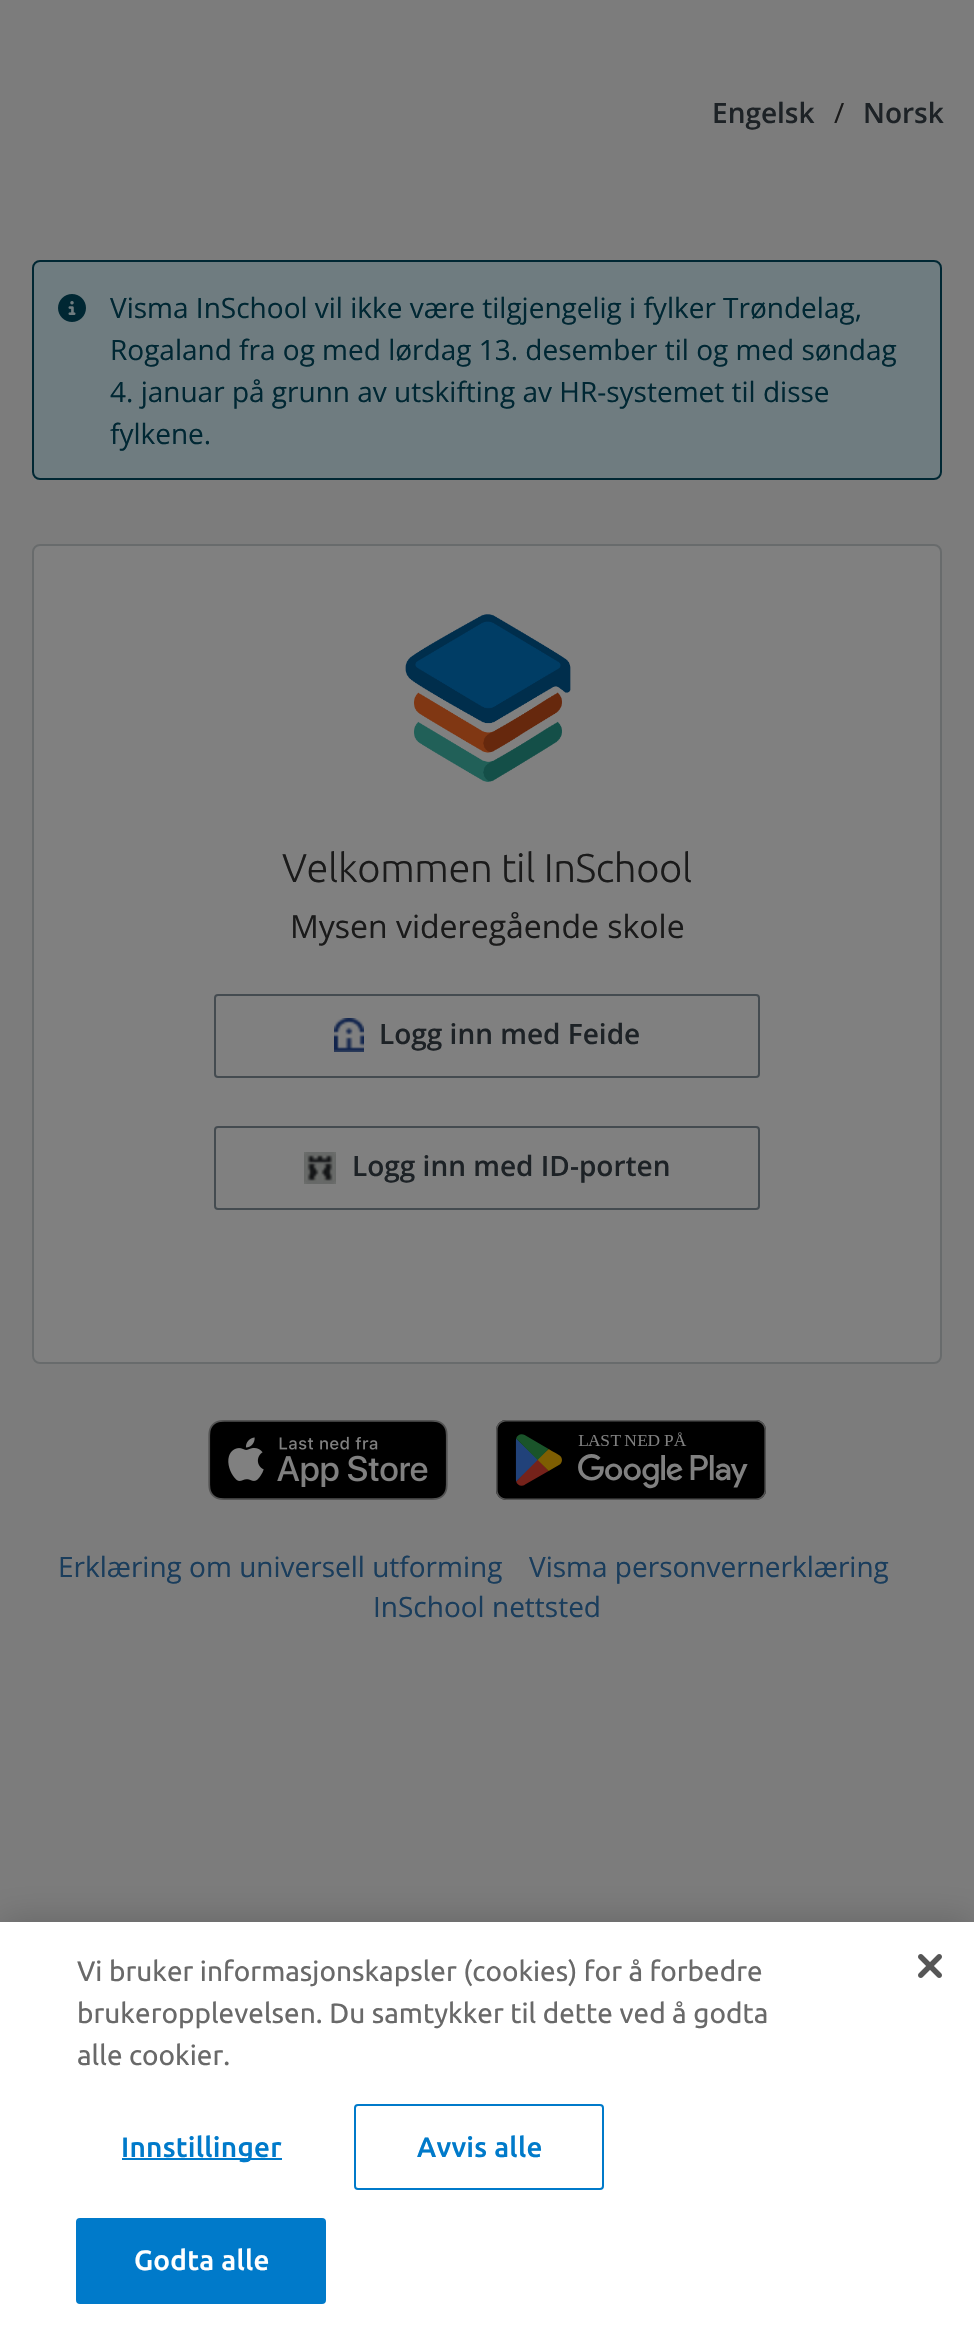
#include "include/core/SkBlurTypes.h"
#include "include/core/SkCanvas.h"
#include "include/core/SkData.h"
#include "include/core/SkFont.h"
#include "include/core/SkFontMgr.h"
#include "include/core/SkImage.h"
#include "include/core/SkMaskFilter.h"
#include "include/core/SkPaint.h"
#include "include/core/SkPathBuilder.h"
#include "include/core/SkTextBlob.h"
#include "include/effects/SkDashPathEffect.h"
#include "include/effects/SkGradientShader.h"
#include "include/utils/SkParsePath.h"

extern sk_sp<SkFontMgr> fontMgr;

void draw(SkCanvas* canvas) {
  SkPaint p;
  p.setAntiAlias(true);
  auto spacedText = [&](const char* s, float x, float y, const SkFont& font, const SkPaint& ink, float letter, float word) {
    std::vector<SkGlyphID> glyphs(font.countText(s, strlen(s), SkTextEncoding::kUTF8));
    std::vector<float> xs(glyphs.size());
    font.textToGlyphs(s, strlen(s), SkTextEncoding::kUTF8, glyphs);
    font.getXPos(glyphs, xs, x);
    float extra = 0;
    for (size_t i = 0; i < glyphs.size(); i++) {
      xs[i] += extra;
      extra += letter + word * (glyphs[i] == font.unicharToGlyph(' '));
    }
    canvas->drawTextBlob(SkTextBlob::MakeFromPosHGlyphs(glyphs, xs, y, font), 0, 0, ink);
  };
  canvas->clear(SkColorSetRGB(124, 124, 124));
  p.setColor(SkColorSetRGB(111, 124, 128));
  canvas->drawRoundRect(SkRect::MakeLTRB(33, 261, 941, 479), 7, 7, p);
  p.setStyle(SkPaint::kStroke_Style);
  p.setStrokeWidth(2);
  p.setColor(SkColorSetRGB(0, 39, 51));
  canvas->drawRoundRect(SkRect::MakeLTRB(33, 261, 941, 479), 7, 7, p);
  canvas->drawImageRect(SkImages::DeferredFromEncodedData(SkData::MakeFromFileName("images/1.png")), SkRect::MakeLTRB(58, 294, 86, 322), SkSamplingOptions());
  p.setStyle(SkPaint::kFill_Style);
  p.setColor(SkColorSetRGB(128, 128, 128));
  canvas->drawRoundRect(SkRect::MakeLTRB(33, 545, 941, 1363), 7, 7, p);
  p.setStyle(SkPaint::kStroke_Style);
  p.setColor(SkColorSetRGB(104, 107, 108));
  canvas->drawRoundRect(SkRect::MakeLTRB(33, 545, 941, 1363), 7, 7, p);
  canvas->drawImageRect(SkImages::DeferredFromEncodedData(SkData::MakeFromFileName("images/2.png")), SkRect::MakeLTRB(405, 614, 571, 782), SkSamplingOptions());
  p.setColor(SkColorSetRGB(68, 75, 80));
  canvas->drawRoundRect(SkRect::MakeLTRB(215, 995, 759, 1077), 3, 3, p);
  canvas->drawImageRect(SkImages::DeferredFromEncodedData(SkData::MakeFromFileName("images/3.png")), SkRect::MakeLTRB(334, 1018, 364, 1052), SkSamplingOptions());
  canvas->drawRoundRect(SkRect::MakeLTRB(215, 1127, 759, 1209), 3, 3, p);
  canvas->drawImageRect(SkImages::DeferredFromEncodedData(SkData::MakeFromFileName("images/4.png")), SkRect::MakeLTRB(304, 1152, 336, 1184), SkSamplingOptions());
  canvas->drawImageRect(SkImages::DeferredFromEncodedData(SkData::MakeFromFileName("images/5.png")), SkRect::MakeLTRB(208, 1420, 448, 1500), SkSamplingOptions());
  canvas->drawImageRect(SkImages::DeferredFromEncodedData(SkData::MakeFromFileName("images/6.png")), SkRect::MakeLTRB(496, 1420, 766, 1500), SkSamplingOptions());
  p.setStyle(SkPaint::kFill_Style);
  p.setColor(SkColorSetARGB(51, 0, 0, 0));
  p.setMaskFilter(SkMaskFilter::MakeBlur(kNormal_SkBlurStyle, 18));
  canvas->drawRect(SkRect::MakeLTRB(0, 1922, 974, 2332), p);
  p.setMaskFilter(nullptr);
  p.setColor(SK_ColorWHITE);
  canvas->drawRect(SkRect::MakeLTRB(0, 1922, 974, 2331), p);
  p.setColor(SkColorSetRGB(0, 122, 202));
  canvas->drawRect(SkRect::MakeLTRB(122, 2158, 282, 2160), p);
  p.setStyle(SkPaint::kStroke_Style);
  canvas->drawRoundRect(SkRect::MakeLTRB(355, 2105, 603, 2189), 3, 3, p);
  p.setStyle(SkPaint::kFill_Style);
  canvas->drawRoundRect(SkRect::MakeLTRB(77, 2219, 325, 2303), 3, 3, p);
  p.setStyle(SkPaint::kStroke_Style);
  canvas->drawRoundRect(SkRect::MakeLTRB(77, 2219, 325, 2303), 3, 3, p);
  canvas->drawImageRect(SkImages::DeferredFromEncodedData(SkData::MakeFromFileName("images/7.png")), SkRect::MakeLTRB(918, 1954, 942, 1978), SkSamplingOptions());
  SkFont font1(fontMgr->matchFamilyStyle("Open Sans", SkFontStyle(600, SkFontStyle::kNormal_Width, SkFontStyle::kUpright_Slant)), 28);
  font1.setSubpixel(true);
  p.setStyle(SkPaint::kFill_Style);
  p.setColor(SkColorSetRGB(29, 34, 38));
  canvas->drawString("Engelsk", 712, 123, font1, p);
  SkFont font2(fontMgr->matchFamilyStyle("Open Sans", SkFontStyle::Normal()), 28);
  font2.setSubpixel(true);
  p.setColor(SkColorSetRGB(26, 26, 26));
  canvas->drawString("/", 834, 123, font2, p);
  p.setColor(SkColorSetRGB(29, 34, 38));
  canvas->drawString("Norsk", 863, 123, font1, p);
  p.setColor(SkColorSetRGB(0, 39, 51));
  canvas->drawString("Visma InSchool vil ikke være tilgjengelig i fylker Trøndelag,", 110, 318, font2, p);
  canvas->drawString("Rogaland fra og med lørdag 13. desember til og med søndag", 110, 360, font2, p);
  canvas->drawString("4. januar på grunn av utskifting av HR-systemet til disse", 110, 402, font2, p);
  canvas->drawString("fylkene.", 110, 444, font2, p);
  SkFont font3(fontMgr->matchFamilyStyle("Ubuntu", SkFontStyle(300, SkFontStyle::kNormal_Width, SkFontStyle::kUpright_Slant)), 40);
  font3.setSubpixel(true);
  p.setColor(SkColorSetRGB(26, 26, 26));
  spacedText("Velkommen til InSchool", 282, 882, font3, p, -0.4f, 0);
  SkFont font4(fontMgr->matchFamilyStyle("Open Sans", SkFontStyle::Normal()), 32);
  font4.setSubpixel(true);
  canvas->drawString("Mysen videregående skole", 290, 938, font4, p);
  p.setColor(SkColorSetRGB(29, 34, 38));
  canvas->drawString("Logg inn med Feide", 379, 1044, font1, p);
  canvas->drawString("Logg inn med ID-porten", 352, 1176, font1, p);
  p.setColor(SkColorSetRGB(26, 61, 92));
  canvas->drawString("Erklæring om universell utforming", 58, 1577, font2, p);
  canvas->drawString("Visma personvernerklæring", 529, 1577, font2, p);
  canvas->drawString("InSchool nettsted", 373, 1617, font2, p);
  SkFont font5(fontMgr->matchFamilyStyle("Ubuntu", SkFontStyle::Normal()), 28);
  font5.setSubpixel(true);
  p.setColor(SkColorSetRGB(105, 105, 105));
  canvas->drawString("Vi bruker informasjonskapsler (cookies) for å forbedre", 77, 1981, font5, p);
  canvas->drawString("brukeropplevelsen. Du samtykker til dette ved å godta", 77, 2023, font5, p);
  canvas->drawString("alle cookier.", 77, 2065, font5, p);
  SkFont font6(fontMgr->matchFamilyStyle("Ubuntu", SkFontStyle(500, SkFontStyle::kNormal_Width, SkFontStyle::kUpright_Slant)), 28);
  font6.setSubpixel(true);
  p.setColor(SkColorSetRGB(0, 122, 202));
  spacedText("Innstillinger", 121, 2157, font6, p, 0.25f, 0);
  spacedText("Avvis alle", 417, 2157, font6, p, 0.25f, 0);
  p.setColor(SK_ColorWHITE);
  spacedText("Godta alle", 134, 2270, font6, p, 0.25f, 0);
}
